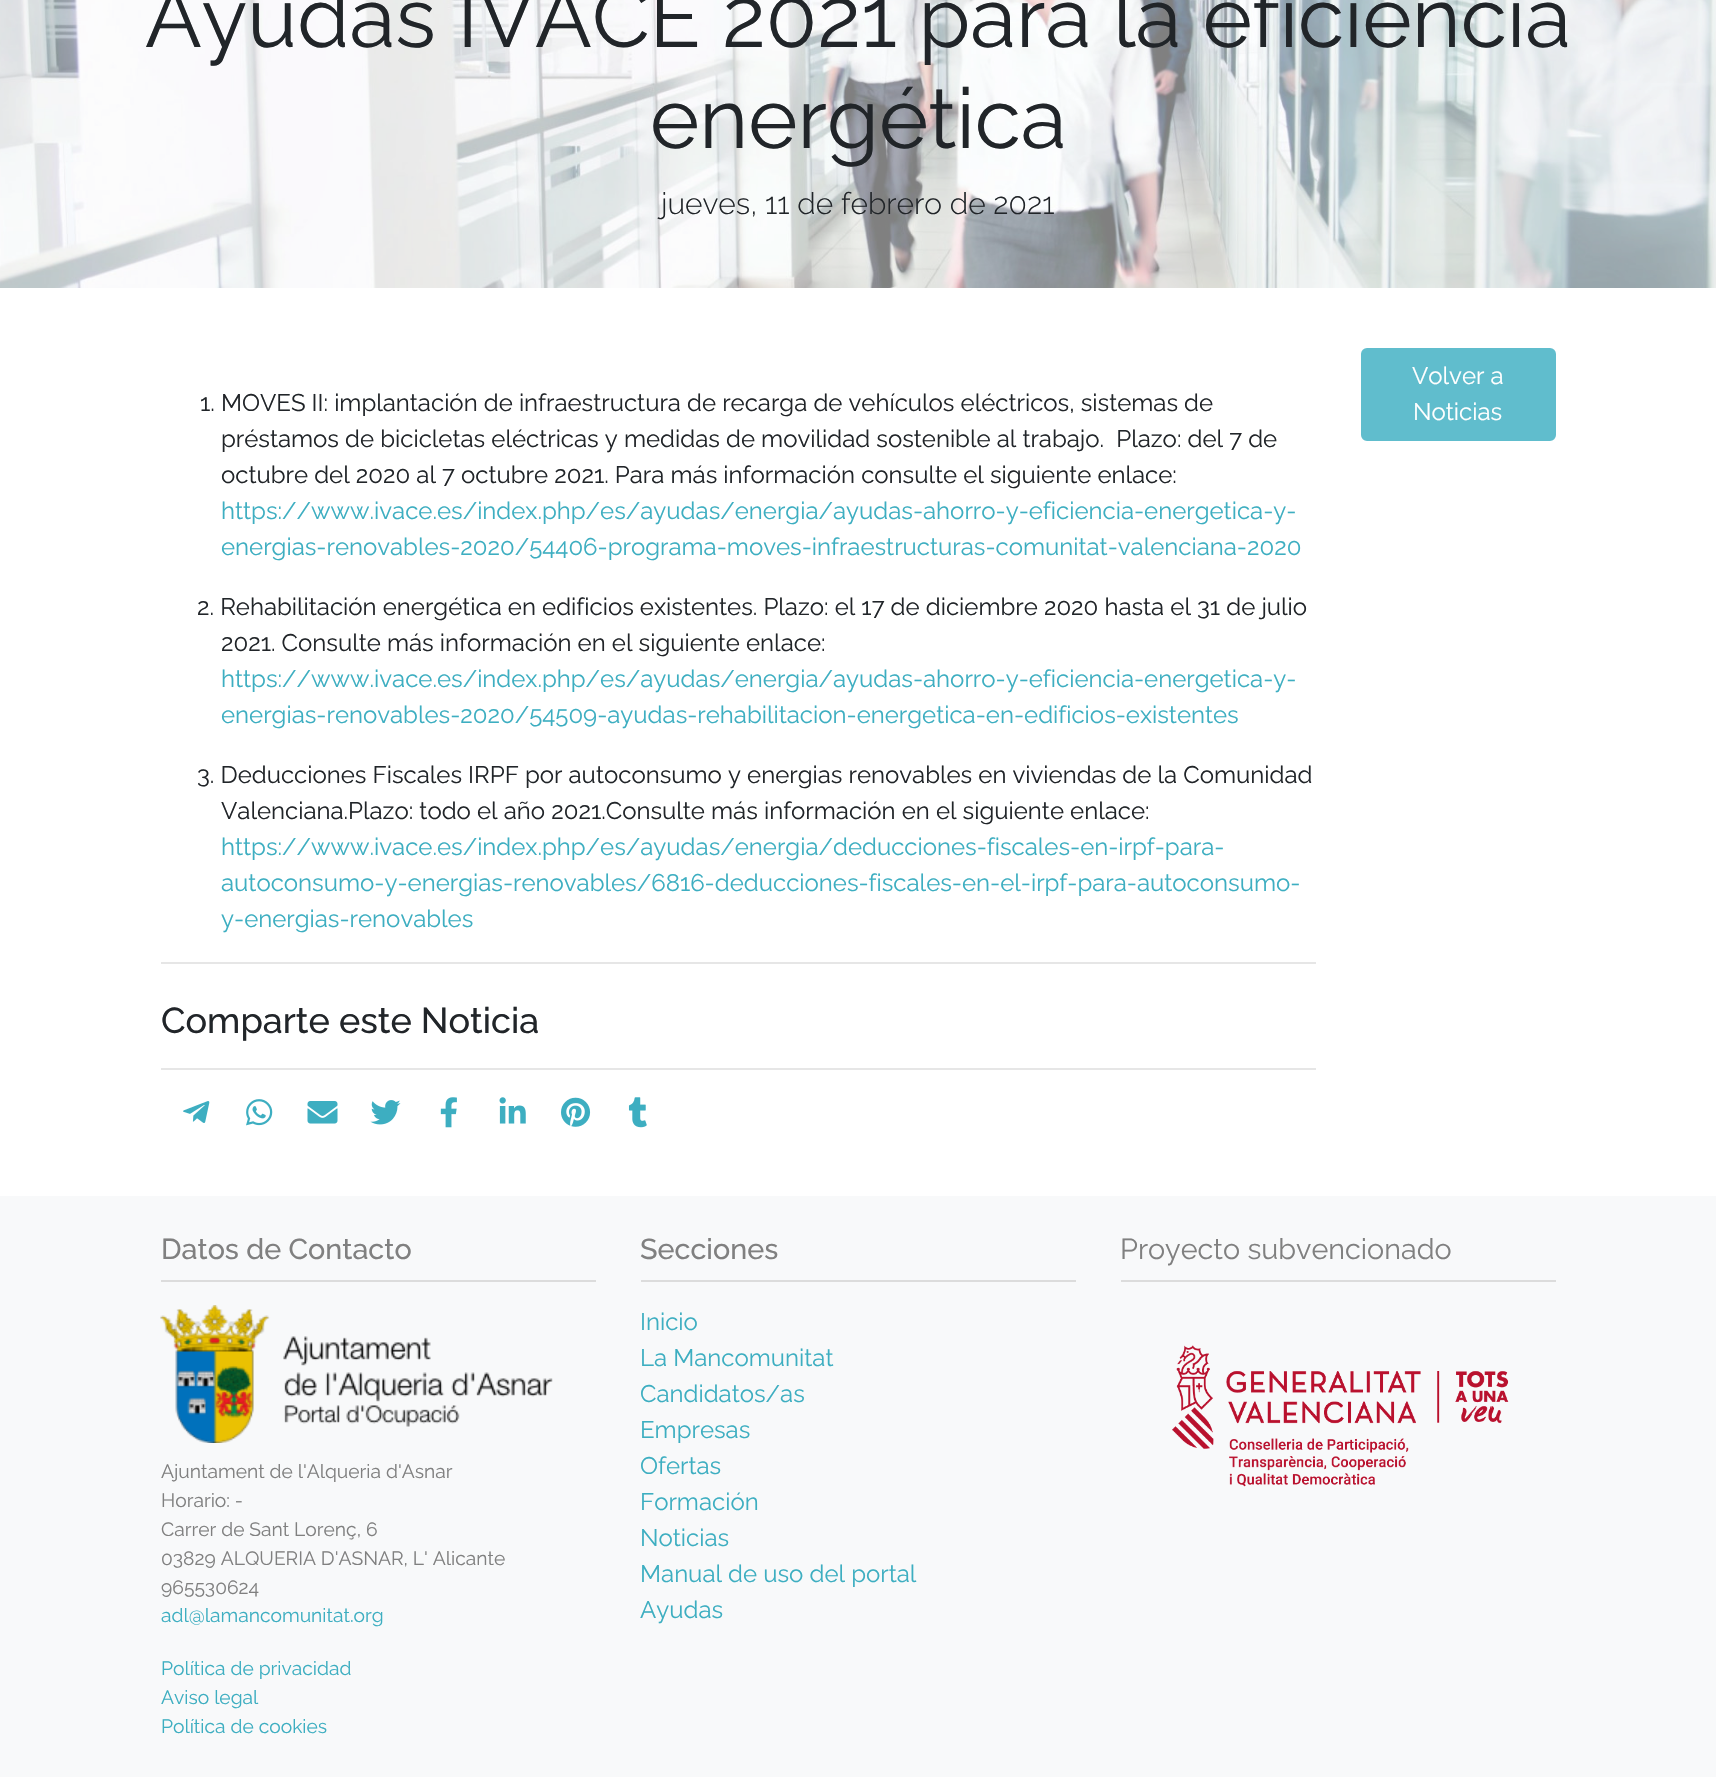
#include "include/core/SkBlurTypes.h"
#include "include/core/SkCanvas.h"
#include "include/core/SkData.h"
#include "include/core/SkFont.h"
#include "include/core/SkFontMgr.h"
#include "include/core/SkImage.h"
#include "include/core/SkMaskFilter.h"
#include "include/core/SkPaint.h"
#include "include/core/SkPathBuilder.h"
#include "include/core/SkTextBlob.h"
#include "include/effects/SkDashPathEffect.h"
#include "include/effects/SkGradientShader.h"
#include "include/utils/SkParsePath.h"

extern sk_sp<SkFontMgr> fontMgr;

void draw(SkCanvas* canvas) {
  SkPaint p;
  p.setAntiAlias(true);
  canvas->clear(SK_ColorWHITE);
  canvas->drawImageRect(SkImages::DeferredFromEncodedData(SkData::MakeFromFileName("images/1.png")), SkRect::MakeLTRB(0, 0, 1716, 288), SkSamplingOptions());
  p.setColor(SkColorSetRGB(230, 230, 230));
  canvas->drawRect(SkRect::MakeLTRB(161, 962, 1316, 964), p);
  canvas->drawRect(SkRect::MakeLTRB(161, 1068, 1316, 1070), p);
  canvas->drawImageRect(SkImages::DeferredFromEncodedData(SkData::MakeFromFileName("images/2.png")), SkRect::MakeLTRB(183, 1101, 210, 1123), SkSamplingOptions());
  canvas->drawImageRect(SkImages::DeferredFromEncodedData(SkData::MakeFromFileName("images/3.png")), SkRect::MakeLTRB(246, 1099, 273, 1126), SkSamplingOptions());
  canvas->drawImageRect(SkImages::DeferredFromEncodedData(SkData::MakeFromFileName("images/4.png")), SkRect::MakeLTRB(307, 1101, 338, 1124), SkSamplingOptions());
  canvas->drawImageRect(SkImages::DeferredFromEncodedData(SkData::MakeFromFileName("images/5.png")), SkRect::MakeLTRB(370, 1100, 401, 1125), SkSamplingOptions());
  canvas->drawImageRect(SkImages::DeferredFromEncodedData(SkData::MakeFromFileName("images/6.png")), SkRect::MakeLTRB(440, 1097, 457, 1128), SkSamplingOptions());
  canvas->drawImageRect(SkImages::DeferredFromEncodedData(SkData::MakeFromFileName("images/7.png")), SkRect::MakeLTRB(499, 1097, 526, 1124), SkSamplingOptions());
  canvas->drawImageRect(SkImages::DeferredFromEncodedData(SkData::MakeFromFileName("images/8.png")), SkRect::MakeLTRB(561, 1097, 591, 1127), SkSamplingOptions());
  canvas->drawImageRect(SkImages::DeferredFromEncodedData(SkData::MakeFromFileName("images/9.png")), SkRect::MakeLTRB(628, 1097, 647, 1128), SkSamplingOptions());
  p.setColor(SkColorSetRGB(96, 189, 205));
  canvas->drawRoundRect(SkRect::MakeLTRB(1362, 349, 1555, 440), 5, 5, p);
  p.setStyle(SkPaint::kStroke_Style);
  p.setStrokeWidth(2);
  canvas->drawRoundRect(SkRect::MakeLTRB(1362, 349, 1555, 440), 5, 5, p);
  p.setStyle(SkPaint::kFill_Style);
  p.setColor(SkColorSetRGB(248, 249, 250));
  canvas->drawRect(SkRect::MakeLTRB(0, 1196, 1716, 1777), p);
  p.setColor(SkColorSetRGB(220, 220, 220));
  canvas->drawRect(SkRect::MakeLTRB(161, 1280, 596, 1282), p);
  canvas->drawImageRect(SkImages::DeferredFromEncodedData(SkData::MakeFromFileName("images/10.png")), SkRect::MakeLTRB(160, 1305, 553, 1443), SkSamplingOptions());
  canvas->drawRect(SkRect::MakeLTRB(641, 1280, 1076, 1282), p);
  canvas->drawRect(SkRect::MakeLTRB(1121, 1280, 1556, 1282), p);
  canvas->drawImageRect(SkImages::DeferredFromEncodedData(SkData::MakeFromFileName("images/11.png")), SkRect::MakeLTRB(1172, 1345, 1509, 1487), SkSamplingOptions());
  SkFont font1(fontMgr->matchFamilyStyle("Raleway", SkFontStyle::Normal()), 84);
  font1.setSubpixel(true);
  p.setColor(SkColorSetRGB(33, 37, 41));
  canvas->drawString("Ayudas IVACE 2021 para la eficiencia", 145, 47, font1, p);
  canvas->drawString("energética", 650, 148, font1, p);
  SkFont font2(fontMgr->matchFamilyStyle("Raleway", SkFontStyle(300, SkFontStyle::kNormal_Width, SkFontStyle::kUpright_Slant)), 30);
  font2.setSubpixel(true);
  canvas->drawString("jueves, 11 de febrero de 2021", 661, 214, font2, p);
  SkFont font3(fontMgr->matchFamilyStyle("Raleway", SkFontStyle::Normal()), 24);
  font3.setSubpixel(true);
  canvas->drawString("1. MOVES II: implantación de infraestructura de recarga de vehículos eléctricos, sistemas de", 200, 411, font3, p);
  canvas->drawString("préstamos de bicicletas eléctricas y medidas de movilidad sostenible al trabajo.  Plazo: del 7 de", 221, 447, font3, p);
  canvas->drawString("octubre del 2020 al 7 octubre 2021. Para más información consulte el siguiente enlace:", 221, 483, font3, p);
  p.setColor(SkColorSetRGB(61, 174, 193));
  canvas->drawString("https://www.ivace.es/index.php/es/ayudas/energia/ayudas-ahorro-y-eficiencia-energetica-y-", 221, 519, font3, p);
  canvas->drawString("energias-renovables-2020/54406-programa-moves-infraestructuras-comunitat-valenciana-2020", 221, 555, font3, p);
  p.setColor(SkColorSetRGB(33, 37, 41));
  canvas->drawString("2. Rehabilitación energética en edificios existentes. Plazo: el 17 de diciembre 2020 hasta el 31 de julio", 197, 615, font3, p);
  canvas->drawString("2021. Consulte más información en el siguiente enlace:", 221, 651, font3, p);
  p.setColor(SkColorSetRGB(61, 174, 193));
  canvas->drawString("https://www.ivace.es/index.php/es/ayudas/energia/ayudas-ahorro-y-eficiencia-energetica-y-", 221, 687, font3, p);
  canvas->drawString("energias-renovables-2020/54509-ayudas-rehabilitacion-energetica-en-edificios-existentes", 221, 723, font3, p);
  p.setColor(SkColorSetRGB(33, 37, 41));
  canvas->drawString("3. Deducciones Fiscales IRPF por autoconsumo y energias renovables en viviendas de la Comunidad", 197, 783, font3, p);
  canvas->drawString("Valenciana.Plazo: todo el año 2021.Consulte más información en el siguiente enlace:", 221, 819, font3, p);
  p.setColor(SkColorSetRGB(61, 174, 193));
  canvas->drawString("https://www.ivace.es/index.php/es/ayudas/energia/deducciones-fiscales-en-irpf-para-", 221, 855, font3, p);
  canvas->drawString("autoconsumo-y-energias-renovables/6816-deducciones-fiscales-en-el-irpf-para-autoconsumo-", 221, 891, font3, p);
  canvas->drawString("y-energias-renovables", 221, 927, font3, p);
  SkFont font4(fontMgr->matchFamilyStyle("Raleway", SkFontStyle(500, SkFontStyle::kNormal_Width, SkFontStyle::kUpright_Slant)), 36);
  font4.setSubpixel(true);
  p.setColor(SkColorSetRGB(33, 37, 41));
  canvas->drawString("Comparte este Noticia", 161, 1033, font4, p);
  p.setColor(SK_ColorWHITE);
  canvas->drawString("Volver a", 1412, 384, font3, p);
  canvas->drawString("Noticias", 1413, 420, font3, p);
  SkFont font5(fontMgr->matchFamilyStyle("Raleway", SkFontStyle(500, SkFontStyle::kNormal_Width, SkFontStyle::kUpright_Slant)), 28.75f);
  font5.setSubpixel(true);
  p.setColor(SkColorSetRGB(128, 128, 128));
  canvas->drawString("Datos de Contacto", 161, 1259, font5, p);
  SkFont font6(fontMgr->matchFamilyStyle("Raleway", SkFontStyle::Normal()), 19.25f);
  font6.setSubpixel(true);
  canvas->drawString("Ajuntament de l'Alqueria d'Asnar", 161, 1478, font6, p);
  canvas->drawString("Horario: -", 161, 1507, font6, p);
  canvas->drawString("Carrer de Sant Lorenç, 6", 161, 1536, font6, p);
  canvas->drawString("03829 ALQUERIA D'ASNAR, L' Alicante", 161, 1565, font6, p);
  canvas->drawString("965530624", 161, 1594, font6, p);
  p.setColor(SkColorSetRGB(61, 174, 193));
  canvas->drawString("adl@lamancomunitat.org", 161, 1622, font6, p);
  canvas->drawString("Política de privacidad", 161, 1675, font6, p);
  canvas->drawString("Aviso legal", 161, 1704, font6, p);
  canvas->drawString("Política de cookies", 161, 1733, font6, p);
  p.setColor(SkColorSetRGB(128, 128, 128));
  canvas->drawString("Secciones", 640, 1259, font5, p);
  p.setColor(SkColorSetRGB(61, 174, 193));
  canvas->drawString("Inicio", 640, 1330, font3, p);
  canvas->drawString("La Mancomunitat", 640, 1366, font3, p);
  canvas->drawString("Candidatos/as", 640, 1402, font3, p);
  canvas->drawString("Empresas", 640, 1438, font3, p);
  canvas->drawString("Ofertas", 640, 1474, font3, p);
  canvas->drawString("Formación", 640, 1510, font3, p);
  canvas->drawString("Noticias", 640, 1546, font3, p);
  canvas->drawString("Manual de uso del portal", 640, 1582, font3, p);
  canvas->drawString("Ayudas", 640, 1618, font3, p);
  SkFont font7(fontMgr->matchFamilyStyle("Raleway", SkFontStyle::Normal()), 28.75f);
  font7.setSubpixel(true);
  p.setColor(SkColorSetRGB(128, 128, 128));
  canvas->drawString("Proyecto subvencionado", 1120, 1259, font7, p);
}
